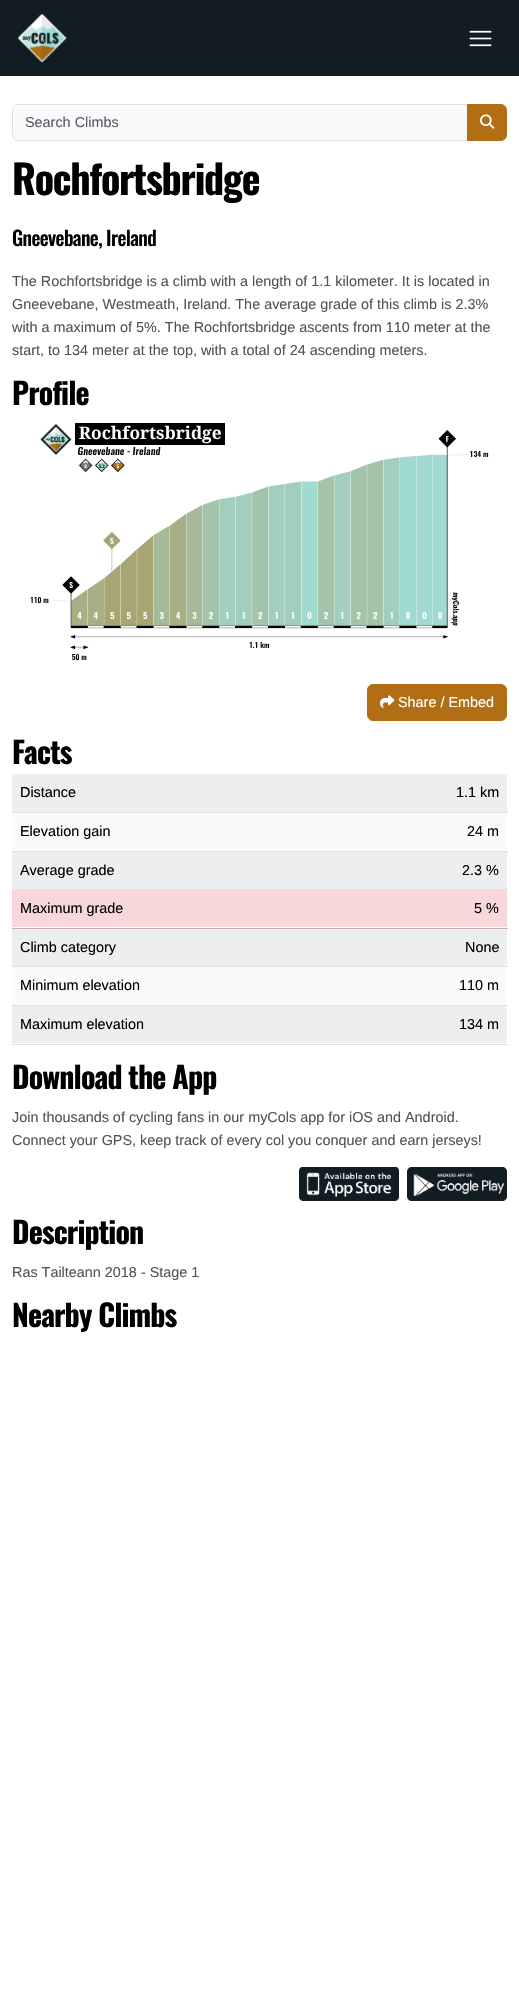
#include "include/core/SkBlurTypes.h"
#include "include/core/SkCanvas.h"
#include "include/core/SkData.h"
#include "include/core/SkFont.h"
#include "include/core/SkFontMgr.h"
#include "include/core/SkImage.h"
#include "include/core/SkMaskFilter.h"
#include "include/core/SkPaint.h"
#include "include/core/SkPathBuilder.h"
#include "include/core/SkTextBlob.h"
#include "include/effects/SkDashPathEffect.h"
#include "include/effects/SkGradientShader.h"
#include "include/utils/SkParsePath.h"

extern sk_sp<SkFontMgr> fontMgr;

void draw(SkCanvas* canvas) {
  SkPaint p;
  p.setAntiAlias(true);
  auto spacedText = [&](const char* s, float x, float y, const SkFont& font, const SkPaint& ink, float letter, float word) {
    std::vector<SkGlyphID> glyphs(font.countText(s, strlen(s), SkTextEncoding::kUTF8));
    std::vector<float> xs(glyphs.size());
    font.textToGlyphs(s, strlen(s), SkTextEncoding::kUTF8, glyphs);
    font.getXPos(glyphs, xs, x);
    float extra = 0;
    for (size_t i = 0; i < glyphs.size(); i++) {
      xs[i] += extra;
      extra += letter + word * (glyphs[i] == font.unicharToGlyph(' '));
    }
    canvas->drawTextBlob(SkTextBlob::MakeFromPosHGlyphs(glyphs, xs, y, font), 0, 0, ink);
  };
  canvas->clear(SK_ColorWHITE);
  p.setColor(SkColorSetRGB(17, 28, 35));
  canvas->drawRect(SkRect::MakeLTRB(0, 0, 519, 76), p);
  canvas->drawImageRect(SkImages::DeferredFromEncodedData(SkData::MakeFromFileName("images/1.png")), SkRect::MakeLTRB(18, 14, 67, 63), SkSamplingOptions());
  p.setStyle(SkPaint::kStroke_Style);
  p.setStrokeWidth(1);
  p.setColor(SkColorSetRGB(14, 24, 30));
  canvas->drawRoundRect(SkRect::MakeLTRB(454.5f, 20.5f, 506.5f, 56.5f), 5.5f, 5.5f, p);
  canvas->drawImageRect(SkImages::DeferredFromEncodedData(SkData::MakeFromFileName("images/2.png")), SkRect::MakeLTRB(469, 30, 492, 47), SkSamplingOptions());
  p.setStyle(SkPaint::kFill_Style);
  p.setColor(SkColorSetRGB(248, 250, 252));
  canvas->drawPath(SkPathBuilder().moveTo(18, 104.5f).lineTo(467.5f, 104.5f).lineTo(467.5f, 140.5f).lineTo(18, 140.5f).cubicTo(15, 140.5f, 12.5f, 138, 12.5f, 135).lineTo(12.5f, 110).cubicTo(12.5f, 107, 15, 104.5f, 18, 104.5f).close().detach(), p);
  p.setStyle(SkPaint::kStroke_Style);
  p.setColor(SkColorSetRGB(222, 226, 230));
  canvas->drawPath(SkPathBuilder().moveTo(18, 104.5f).lineTo(467.5f, 104.5f).lineTo(467.5f, 140.5f).lineTo(18, 140.5f).cubicTo(15, 140.5f, 12.5f, 138, 12.5f, 135).lineTo(12.5f, 110).cubicTo(12.5f, 107, 15, 104.5f, 18, 104.5f).close().detach(), p);
  p.setStyle(SkPaint::kFill_Style);
  p.setColor(SkColorSetRGB(177, 110, 21));
  canvas->drawPath(SkPathBuilder().moveTo(467.5f, 104.5f).lineTo(501, 104.5f).cubicTo(504, 104.5f, 506.5f, 107, 506.5f, 110).lineTo(506.5f, 135).cubicTo(506.5f, 138, 504, 140.5f, 501, 140.5f).lineTo(467.5f, 140.5f).close().detach(), p);
  p.setStyle(SkPaint::kStroke_Style);
  canvas->drawPath(SkPathBuilder().moveTo(467.5f, 104.5f).lineTo(501, 104.5f).cubicTo(504, 104.5f, 506.5f, 107, 506.5f, 110).lineTo(506.5f, 135).cubicTo(506.5f, 138, 504, 140.5f, 501, 140.5f).lineTo(467.5f, 140.5f).close().detach(), p);
  canvas->drawImageRect(SkImages::DeferredFromEncodedData(SkData::MakeFromFileName("images/3.png")), SkRect::MakeLTRB(480, 114, 495, 129), SkSamplingOptions());
  canvas->drawImageRect(SkImages::DeferredFromEncodedData(SkData::MakeFromFileName("images/4.png")), SkRect::MakeLTRB(30, 423, 489, 660), SkSamplingOptions());
  p.setStyle(SkPaint::kFill_Style);
  canvas->drawRoundRect(SkRect::MakeLTRB(367.5f, 684.5f, 506.5f, 720.5f), 5.5f, 5.5f, p);
  p.setStyle(SkPaint::kStroke_Style);
  canvas->drawRoundRect(SkRect::MakeLTRB(367.5f, 684.5f, 506.5f, 720.5f), 5.5f, 5.5f, p);
  canvas->drawImageRect(SkImages::DeferredFromEncodedData(SkData::MakeFromFileName("images/5.png")), SkRect::MakeLTRB(380, 695, 395, 708), SkSamplingOptions());
  p.setStyle(SkPaint::kFill_Style);
  p.setColor(SkColorSetRGB(236, 238, 239));
  canvas->drawRect(SkRect::MakeLTRB(12, 774, 507, 812), p);
  p.setColor(SkColorSetRGB(222, 226, 230));
  canvas->drawRect(SkRect::MakeLTRB(12, 812, 508, 813), p);
  p.setColor(SkColorSetRGB(248, 250, 252));
  canvas->drawRect(SkRect::MakeLTRB(12, 813, 507, 850), p);
  p.setColor(SkColorSetRGB(222, 226, 230));
  canvas->drawRect(SkRect::MakeLTRB(12, 851, 508, 852), p);
  p.setColor(SkColorSetRGB(236, 238, 239));
  canvas->drawRect(SkRect::MakeLTRB(12, 852, 507, 889), p);
  p.setColor(SkColorSetRGB(222, 226, 230));
  canvas->drawRect(SkRect::MakeLTRB(12, 889, 508, 890), p);
  p.setColor(SkColorSetRGB(248, 215, 218));
  canvas->drawRect(SkRect::MakeLTRB(12, 890, 507, 927), p);
  p.setColor(SkColorSetRGB(198, 172, 174));
  canvas->drawRect(SkRect::MakeLTRB(12, 928, 508, 929), p);
  p.setColor(SkColorSetRGB(236, 238, 239));
  canvas->drawRect(SkRect::MakeLTRB(12, 929, 507, 966), p);
  p.setColor(SkColorSetRGB(222, 226, 230));
  canvas->drawRect(SkRect::MakeLTRB(12, 966, 508, 967), p);
  p.setColor(SkColorSetRGB(248, 250, 252));
  canvas->drawRect(SkRect::MakeLTRB(12, 967, 507, 1005), p);
  p.setColor(SkColorSetRGB(222, 226, 230));
  canvas->drawRect(SkRect::MakeLTRB(12, 1005, 508, 1006), p);
  p.setColor(SkColorSetRGB(236, 238, 239));
  canvas->drawRect(SkRect::MakeLTRB(12, 1006, 507, 1043), p);
  p.setColor(SkColorSetRGB(222, 226, 230));
  canvas->drawRect(SkRect::MakeLTRB(12, 1044, 508, 1045), p);
  canvas->drawImageRect(SkImages::DeferredFromEncodedData(SkData::MakeFromFileName("images/6.png")), SkRect::MakeLTRB(299, 1167, 399, 1201), SkSamplingOptions());
  canvas->drawImageRect(SkImages::DeferredFromEncodedData(SkData::MakeFromFileName("images/7.png")), SkRect::MakeLTRB(407, 1167, 507, 1201), SkSamplingOptions());
  SkFont font1(fontMgr->matchFamilyStyle("Liberation Sans", SkFontStyle::Normal()), 14.4f);
  font1.setSubpixel(true);
  p.setColor(SkColorSetRGB(87, 90, 94));
  canvas->drawString("Search Climbs", 25, 127, font1, p);
  SkFont font2(fontMgr->matchFamilyStyle("Oswald", SkFontStyle::Bold()), 40);
  font2.setSubpixel(true);
  p.setColor(SK_ColorBLACK);
  spacedText("Rochfortsbridge", 12, 195, font2, p, -1.25f, 0);
  SkFont font3(fontMgr->matchFamilyStyle("Oswald", SkFontStyle(500, SkFontStyle::kNormal_Width, SkFontStyle::kUpright_Slant)), 20);
  font3.setSubpixel(true);
  spacedText("Gneevebane, Ireland", 12, 246, font3, p, -0.6f, 0);
  p.setColor(SkColorSetRGB(83, 83, 83));
  canvas->drawString("The Rochfortsbridge is a climb with a length of 1.1 kilometer. It is located in", 12, 286, font1, p);
  canvas->drawString("Gneevebane, Westmeath, Ireland. The average grade of this climb is 2.3%", 12, 309, font1, p);
  canvas->drawString("with a maximum of 5%. The Rochfortsbridge ascents from 110 meter at the", 12, 332, font1, p);
  canvas->drawString("start, to 134 meter at the top, with a total of 24 ascending meters.", 12, 355, font1, p);
  SkFont font4(fontMgr->matchFamilyStyle("Oswald", SkFontStyle::Bold()), 30);
  font4.setSubpixel(true);
  p.setColor(SK_ColorBLACK);
  spacedText("Profile", 12, 405, font4, p, -0.9f, 0);
  p.setColor(SK_ColorWHITE);
  canvas->drawString("Share / Embed", 398, 707, font1, p);
  p.setColor(SK_ColorBLACK);
  spacedText("Facts", 12, 764, font4, p, -0.9f, 0);
  canvas->drawString("Distance", 20, 797, font1, p);
  canvas->drawString("1.1 km", 456, 797, font1, p);
  canvas->drawString("Elevation gain", 20, 836, font1, p);
  canvas->drawString("24 m", 467, 836, font1, p);
  canvas->drawString("Average grade", 20, 875, font1, p);
  canvas->drawString("2.3 %", 462, 875, font1, p);
  canvas->drawString("Maximum grade", 20, 913, font1, p);
  canvas->drawString("5 %", 474, 913, font1, p);
  canvas->drawString("Climb category", 20, 952, font1, p);
  canvas->drawString("None", 465, 952, font1, p);
  canvas->drawString("Minimum elevation", 20, 990, font1, p);
  canvas->drawString("110 m", 459, 990, font1, p);
  canvas->drawString("Maximum elevation", 20, 1029, font1, p);
  canvas->drawString("134 m", 459, 1029, font1, p);
  spacedText("Download the App", 12, 1089, font4, p, -0.9f, 0);
  p.setColor(SkColorSetRGB(83, 83, 83));
  canvas->drawString("Join thousands of cycling fans in our myCols app for iOS and Android.", 12, 1122, font1, p);
  canvas->drawString("Connect your GPS, keep track of every col you conquer and earn jerseys!", 12, 1145, font1, p);
  p.setColor(SK_ColorBLACK);
  spacedText("Description", 12, 1244, font4, p, -0.9f, 0);
  p.setColor(SkColorSetRGB(83, 83, 83));
  canvas->drawString("Ras Tailteann 2018 - Stage 1", 12, 1277, font1, p);
  p.setColor(SK_ColorBLACK);
  spacedText("Nearby Climbs", 12, 1327, font4, p, -0.9f, 0);
}
